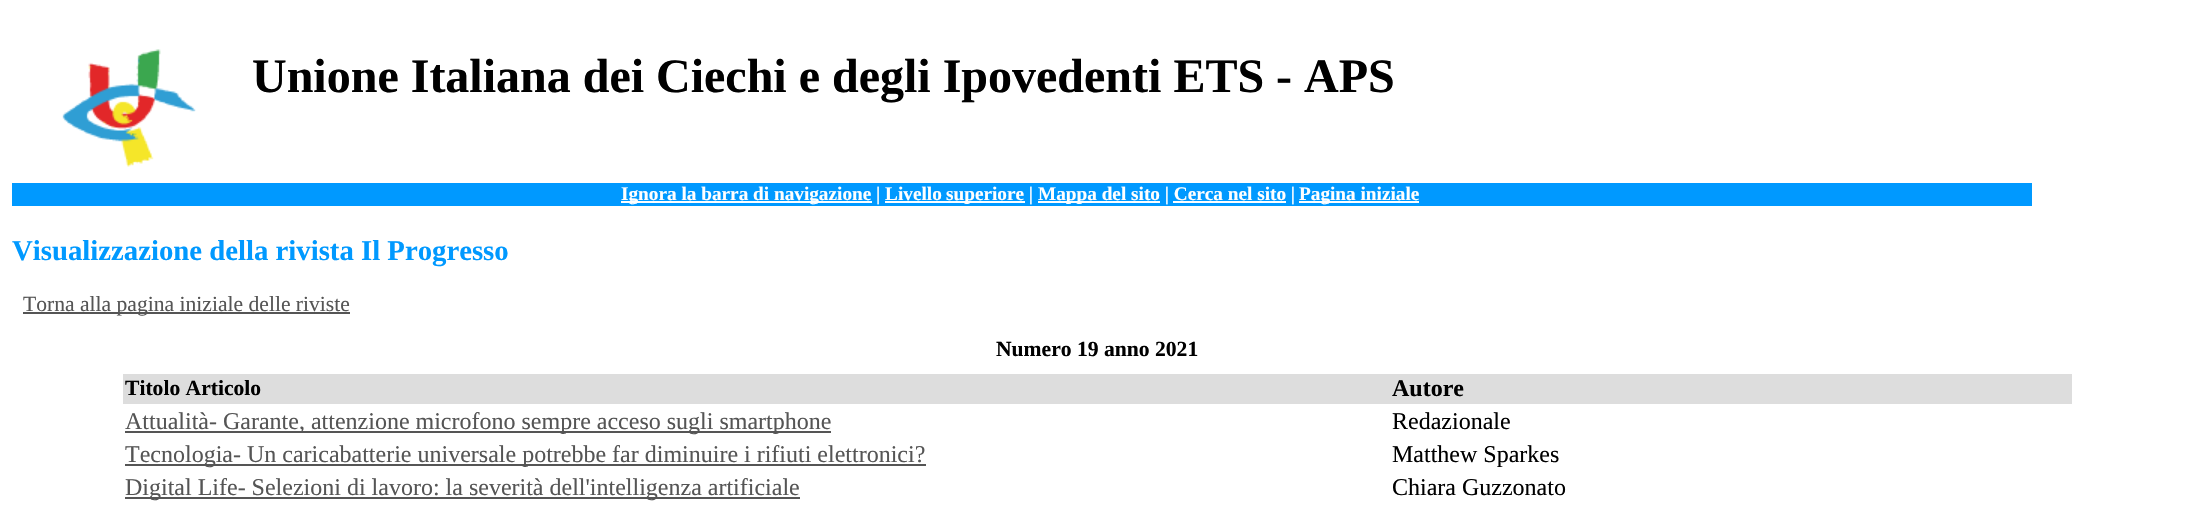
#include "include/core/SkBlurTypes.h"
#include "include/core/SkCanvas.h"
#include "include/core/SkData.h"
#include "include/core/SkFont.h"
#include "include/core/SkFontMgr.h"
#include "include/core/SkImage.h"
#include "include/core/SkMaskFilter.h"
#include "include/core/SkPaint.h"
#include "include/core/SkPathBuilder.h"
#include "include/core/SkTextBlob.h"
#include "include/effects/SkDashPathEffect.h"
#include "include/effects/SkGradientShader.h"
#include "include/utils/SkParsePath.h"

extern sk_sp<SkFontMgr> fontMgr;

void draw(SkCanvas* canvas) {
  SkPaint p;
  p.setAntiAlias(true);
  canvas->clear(SK_ColorWHITE);
  canvas->drawImageRect(SkImages::DeferredFromEncodedData(SkData::MakeFromFileName("images/1.png")), SkRect::MakeLTRB(62, 49, 196, 167), SkSamplingOptions());
  p.setColor(SkColorSetRGB(0, 153, 255));
  canvas->drawRect(SkRect::MakeLTRB(12, 183, 2032, 206), p);
  p.setColor(SK_ColorWHITE);
  canvas->drawRect(SkRect::MakeLTRB(621, 201, 872, 203), p);
  canvas->drawRect(SkRect::MakeLTRB(885, 201, 1025, 203), p);
  canvas->drawRect(SkRect::MakeLTRB(1038, 201, 1160, 203), p);
  canvas->drawRect(SkRect::MakeLTRB(1299, 201, 1419, 203), p);
  canvas->drawRect(SkRect::MakeLTRB(1173, 201, 1286, 203), p);
  p.setColor(SkColorSetRGB(85, 85, 85));
  canvas->drawRect(SkRect::MakeLTRB(23, 312, 350, 314), p);
  p.setColor(SkColorSetRGB(221, 221, 221));
  canvas->drawRect(SkRect::MakeLTRB(123, 374, 2072, 404), p);
  p.setColor(SkColorSetRGB(85, 85, 85));
  canvas->drawRect(SkRect::MakeLTRB(125, 431, 831, 433), p);
  canvas->drawRect(SkRect::MakeLTRB(125, 464, 926, 466), p);
  canvas->drawRect(SkRect::MakeLTRB(125, 497, 800, 499), p);
  SkFont font1(fontMgr->matchFamilyStyle("Liberation Serif", SkFontStyle::Bold()), 48);
  font1.setSubpixel(true);
  p.setColor(SK_ColorBLACK);
  canvas->drawString("Unione Italiana dei Ciechi e degli Ipovedenti ETS - APS", 252, 92, font1, p);
  SkFont font2(fontMgr->matchFamilyStyle("Liberation Serif", SkFontStyle::Bold()), 19.25f);
  font2.setSubpixel(true);
  p.setColor(SK_ColorWHITE);
  canvas->drawString("Ignora la barra di navigazione | Livello", 621, 200, font2, p);
  canvas->drawString("superiore |", 946, 200, font2, p);
  canvas->drawString("Mappa del sito | Cerca nel sito |", 1038, 200, font2, p);
  canvas->drawString("Pagina iniziale", 1299, 200, font2, p);
  SkFont font3(fontMgr->matchFamilyStyle("Liberation Serif", SkFontStyle::Bold()), 28.75f);
  font3.setSubpixel(true);
  p.setColor(SkColorSetRGB(0, 153, 255));
  canvas->drawString("Visualizzazione della rivista Il Progresso", 12, 260, font3, p);
  SkFont font4(fontMgr->matchFamilyStyle("Liberation Serif", SkFontStyle::Normal()), 21.6f);
  font4.setSubpixel(true);
  p.setColor(SkColorSetRGB(85, 85, 85));
  canvas->drawString("Torna alla pagina iniziale delle riviste", 23, 311, font4, p);
  SkFont font5(fontMgr->matchFamilyStyle("Liberation Serif", SkFontStyle::Bold()), 21.6f);
  font5.setSubpixel(true);
  p.setColor(SK_ColorBLACK);
  canvas->drawString("Numero 19 anno 2021", 996, 356, font5, p);
  canvas->drawString("Titolo Articolo", 125, 395, font5, p);
  SkFont font6(fontMgr->matchFamilyStyle("Liberation Serif", SkFontStyle::Bold()), 24);
  font6.setSubpixel(true);
  canvas->drawString("Autore", 1392, 396, font6, p);
  SkFont font7(fontMgr->matchFamilyStyle("Liberation Serif", SkFontStyle::Normal()), 24);
  font7.setSubpixel(true);
  p.setColor(SkColorSetRGB(85, 85, 85));
  canvas->drawString("Attualità- Garante, attenzione microfono sempre acceso sugli smartphone", 125, 429, font7, p);
  p.setColor(SK_ColorBLACK);
  canvas->drawString("Redazionale", 1392, 429, font7, p);
  p.setColor(SkColorSetRGB(85, 85, 85));
  canvas->drawString("Tecnologia- Un caricabatterie universale potrebbe far diminuire i rifiuti elettronici?", 125, 462, font7, p);
  p.setColor(SK_ColorBLACK);
  canvas->drawString("Matthew Sparkes", 1392, 462, font7, p);
  p.setColor(SkColorSetRGB(85, 85, 85));
  canvas->drawString("Digital Life- Selezioni di lavoro: la severità dell'intelligenza artificiale", 125, 495, font7, p);
  p.setColor(SK_ColorBLACK);
  canvas->drawString("Chiara Guzzonato", 1392, 495, font7, p);
}
